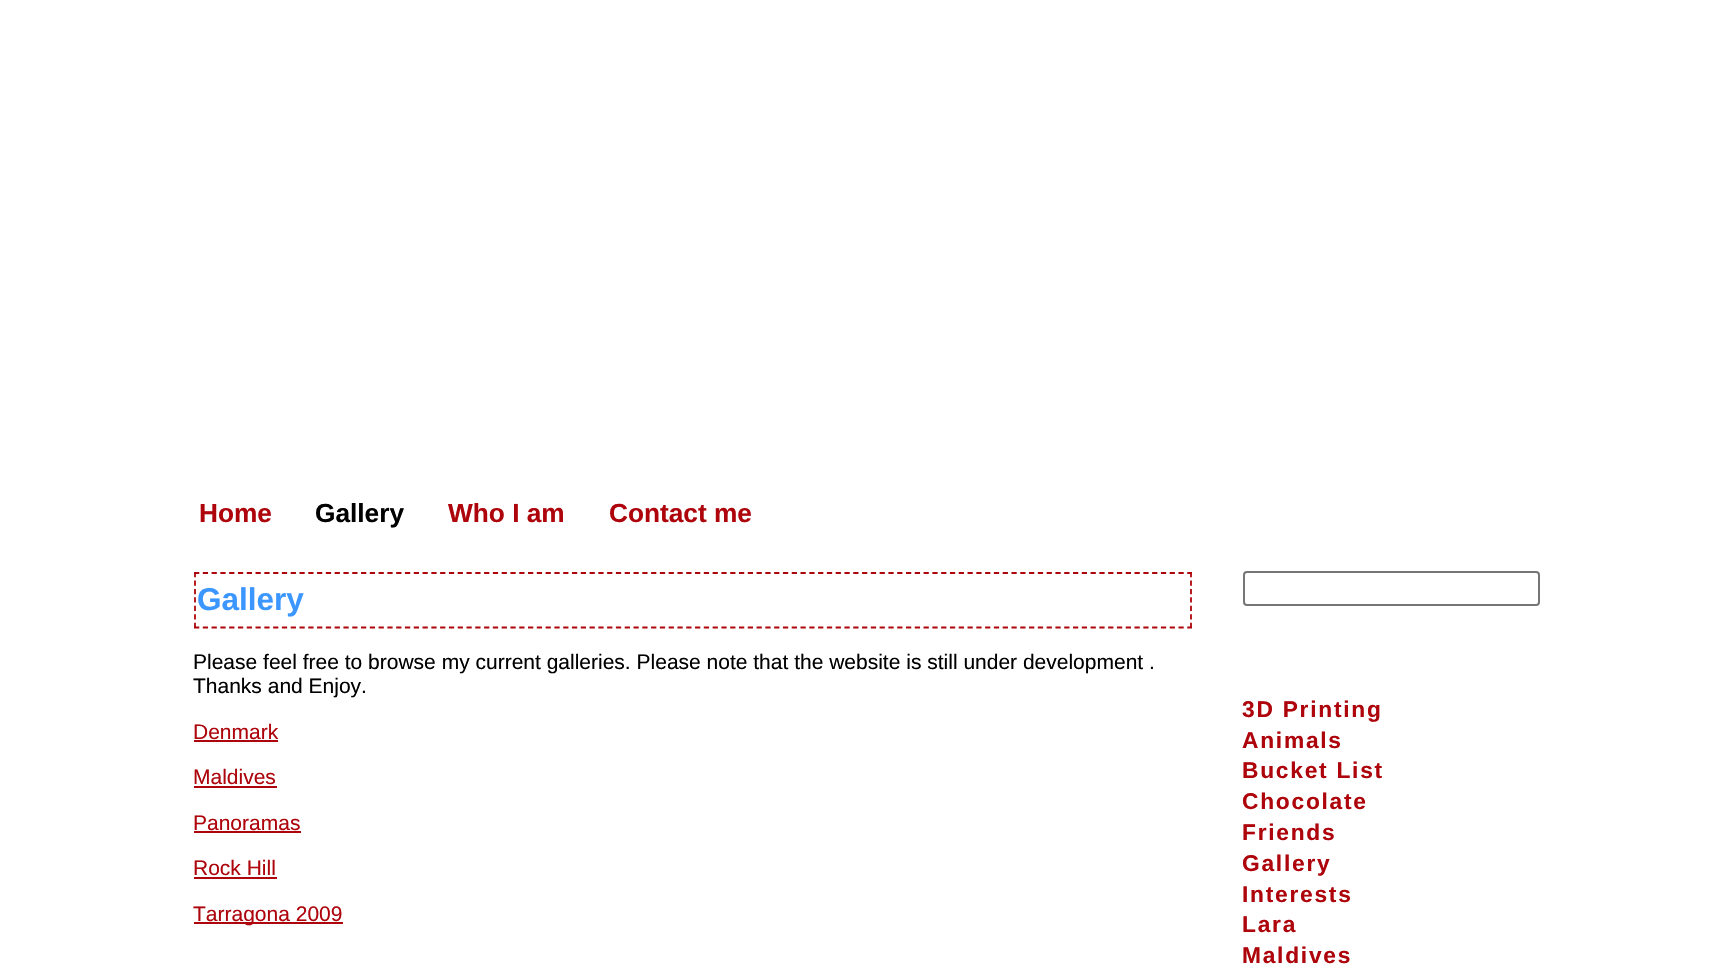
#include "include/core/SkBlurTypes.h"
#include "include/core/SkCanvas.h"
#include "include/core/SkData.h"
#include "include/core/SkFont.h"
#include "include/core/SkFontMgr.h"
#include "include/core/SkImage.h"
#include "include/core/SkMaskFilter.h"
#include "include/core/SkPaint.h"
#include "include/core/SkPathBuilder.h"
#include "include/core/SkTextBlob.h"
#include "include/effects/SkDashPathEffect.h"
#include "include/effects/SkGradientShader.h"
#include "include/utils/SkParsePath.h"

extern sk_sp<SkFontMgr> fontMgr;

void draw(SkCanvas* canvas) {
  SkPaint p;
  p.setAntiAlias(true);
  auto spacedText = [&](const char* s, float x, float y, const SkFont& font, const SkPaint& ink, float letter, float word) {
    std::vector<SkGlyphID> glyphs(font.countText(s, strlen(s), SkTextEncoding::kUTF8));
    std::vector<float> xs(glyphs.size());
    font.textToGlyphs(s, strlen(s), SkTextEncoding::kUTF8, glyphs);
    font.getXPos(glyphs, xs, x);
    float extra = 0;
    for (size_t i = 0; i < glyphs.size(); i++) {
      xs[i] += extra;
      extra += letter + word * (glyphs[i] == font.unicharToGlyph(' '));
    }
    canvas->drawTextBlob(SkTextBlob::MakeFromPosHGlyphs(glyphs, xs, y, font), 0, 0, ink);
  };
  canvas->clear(SK_ColorWHITE);
  p.setStyle(SkPaint::kStroke_Style);
  p.setStrokeWidth(1.8f);
  p.setColor(SkColorSetRGB(173, 5, 11));
  p.setPathEffect(SkDashPathEffect::Make({{5.25f, 3.54f}}, 0));
  canvas->drawPath(SkPathBuilder().moveTo(194, 573).lineTo(1192, 573).detach(), p);
  p.setPathEffect(nullptr);
  p.setPathEffect(SkDashPathEffect::Make({{5.25f, 3.2f}}, 0));
  canvas->drawPath(SkPathBuilder().moveTo(1191, 572).lineTo(1191, 628).detach(), p);
  p.setPathEffect(nullptr);
  p.setPathEffect(SkDashPathEffect::Make({{5.25f, 3.54f}}, 0));
  canvas->drawPath(SkPathBuilder().moveTo(194, 627.5f).lineTo(1192, 627.5f).detach(), p);
  p.setPathEffect(nullptr);
  p.setPathEffect(SkDashPathEffect::Make({{5.25f, 3.2f}}, 0));
  canvas->drawPath(SkPathBuilder().moveTo(195, 572).lineTo(195, 628).detach(), p);
  p.setPathEffect(nullptr);
  p.setStyle(SkPaint::kFill_Style);
  canvas->drawRect(SkRect::MakeLTRB(194, 740, 278, 742), p);
  canvas->drawRect(SkRect::MakeLTRB(194, 786, 277, 788), p);
  canvas->drawRect(SkRect::MakeLTRB(194, 831, 301, 833), p);
  canvas->drawRect(SkRect::MakeLTRB(194, 877, 277, 879), p);
  canvas->drawRect(SkRect::MakeLTRB(194, 922, 343, 924), p);
  p.setStyle(SkPaint::kStroke_Style);
  p.setStrokeWidth(2);
  p.setColor(SkColorSetRGB(118, 118, 118));
  canvas->drawRoundRect(SkRect::MakeLTRB(1244, 572, 1539, 605), 3, 3, p);
  SkFont font1(fontMgr->matchFamilyStyle("Liberation Sans", SkFontStyle::Bold()), 26.25f);
  font1.setSubpixel(true);
  p.setStyle(SkPaint::kFill_Style);
  p.setColor(SkColorSetRGB(173, 5, 11));
  canvas->drawString("Home", 199, 522, font1, p);
  p.setColor(SK_ColorBLACK);
  canvas->drawString("Gallery", 315, 522, font1, p);
  p.setColor(SkColorSetRGB(173, 5, 11));
  canvas->drawString("Who I am", 448, 522, font1, p);
  canvas->drawString("Contact me", 609, 522, font1, p);
  SkFont font2(fontMgr->matchFamilyStyle("Liberation Sans", SkFontStyle::Bold()), 31.5f);
  font2.setSubpixel(true);
  p.setColor(SkColorSetRGB(59, 151, 255));
  canvas->drawString("Gallery", 197, 610, font2, p);
  SkFont font3(fontMgr->matchFamilyStyle("Liberation Sans", SkFontStyle::Normal()), 21);
  font3.setSubpixel(true);
  p.setColor(SK_ColorBLACK);
  canvas->drawString("Please feel free to browse my current galleries. Please note that the website is still under development .", 193, 669, font3, p);
  canvas->drawString("Thanks and Enjoy.", 193, 693, font3, p);
  p.setColor(SkColorSetRGB(173, 5, 11));
  canvas->drawString("Denmark", 193, 739, font3, p);
  canvas->drawString("Maldives", 193, 784, font3, p);
  canvas->drawString("Panoramas", 193, 830, font3, p);
  canvas->drawString("Rock Hill", 193, 875, font3, p);
  canvas->drawString("Tarragona 2009", 193, 921, font3, p);
  SkFont font4(fontMgr->matchFamilyStyle("Liberation Sans", SkFontStyle::Bold()), 22.75f);
  font4.setSubpixel(true);
  spacedText("3D Printing", 1242, 717, font4, p, 1.75f, 0);
  spacedText("Animals", 1242, 748, font4, p, 1.75f, 0);
  spacedText("Bucket List", 1242, 778, font4, p, 1.75f, 0);
  spacedText("Chocolate", 1242, 809, font4, p, 1.75f, 0);
  spacedText("Friends", 1242, 840, font4, p, 1.75f, 0);
  spacedText("Gallery", 1242, 871, font4, p, 1.75f, 0);
  spacedText("Interests", 1242, 902, font4, p, 1.75f, 0);
  spacedText("Lara", 1242, 932, font4, p, 1.75f, 0);
  spacedText("Maldives", 1242, 963, font4, p, 1.75f, 0);
}
